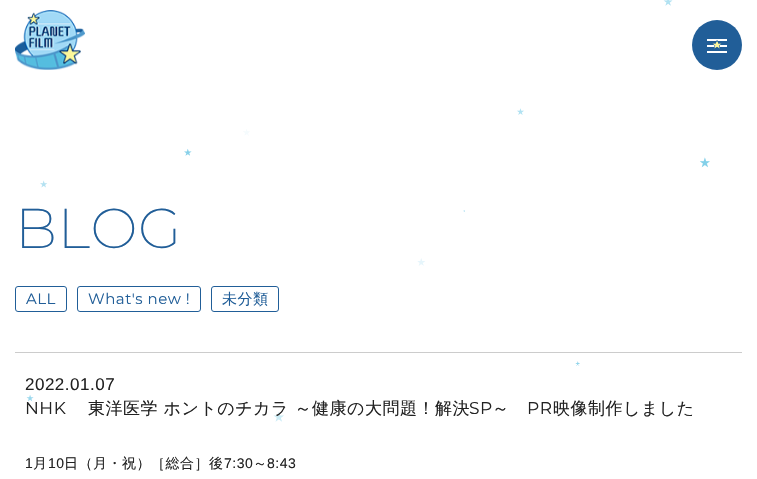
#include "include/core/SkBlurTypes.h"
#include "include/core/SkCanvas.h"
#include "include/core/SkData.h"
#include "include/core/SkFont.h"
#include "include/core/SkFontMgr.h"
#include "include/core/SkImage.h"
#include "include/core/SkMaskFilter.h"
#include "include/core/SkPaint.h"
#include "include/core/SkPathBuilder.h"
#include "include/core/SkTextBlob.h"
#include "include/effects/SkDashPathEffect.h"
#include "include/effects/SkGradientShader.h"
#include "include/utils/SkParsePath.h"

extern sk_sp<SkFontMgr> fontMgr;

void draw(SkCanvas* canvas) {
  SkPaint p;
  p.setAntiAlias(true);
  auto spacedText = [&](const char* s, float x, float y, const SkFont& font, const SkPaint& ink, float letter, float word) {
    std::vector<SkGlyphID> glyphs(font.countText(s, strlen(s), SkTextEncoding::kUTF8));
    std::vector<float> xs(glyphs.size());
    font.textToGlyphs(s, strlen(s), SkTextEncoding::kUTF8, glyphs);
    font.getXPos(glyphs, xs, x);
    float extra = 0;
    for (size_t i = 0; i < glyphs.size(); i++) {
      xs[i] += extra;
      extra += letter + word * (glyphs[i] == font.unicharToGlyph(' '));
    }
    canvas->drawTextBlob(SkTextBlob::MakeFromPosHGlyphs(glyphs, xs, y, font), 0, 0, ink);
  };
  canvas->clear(SK_ColorWHITE);
  canvas->drawImageRect(SkImages::DeferredFromEncodedData(SkData::MakeFromFileName("images/1.png")), SkRect::MakeLTRB(26, 0, 710, 422), SkSamplingOptions());
  canvas->drawImageRect(SkImages::DeferredFromEncodedData(SkData::MakeFromFileName("images/2.png")), SkRect::MakeLTRB(15, 10, 85, 70), SkSamplingOptions());
  p.setColor(SkColorSetRGB(33, 94, 152));
  canvas->drawCircle(717, 45, 25, p);
  p.setColor(SK_ColorWHITE);
  canvas->drawRect(SkRect::MakeLTRB(707, 45, 727, 47), p);
  canvas->drawRect(SkRect::MakeLTRB(707, 39, 727, 41), p);
  canvas->drawRect(SkRect::MakeLTRB(707, 51, 727, 53), p);
  canvas->drawImageRect(SkImages::DeferredFromEncodedData(SkData::MakeFromFileName("images/3.png")), SkRect::MakeLTRB(712, 40, 722, 49), SkSamplingOptions());
  p.setStyle(SkPaint::kStroke_Style);
  p.setStrokeWidth(1);
  p.setColor(SkColorSetRGB(33, 94, 152));
  canvas->drawRoundRect(SkRect::MakeLTRB(15.5f, 286.5f, 66.5f, 311.5f), 2.5f, 2.5f, p);
  canvas->drawRoundRect(SkRect::MakeLTRB(77.5f, 286.5f, 200.5f, 311.5f), 2.5f, 2.5f, p);
  canvas->drawRoundRect(SkRect::MakeLTRB(211.5f, 286.5f, 278.5f, 311.5f), 2.5f, 2.5f, p);
  p.setStyle(SkPaint::kFill_Style);
  p.setColor(SkColorSetRGB(204, 204, 204));
  canvas->drawRect(SkRect::MakeLTRB(15, 352, 742, 353), p);
  SkFont font1(fontMgr->matchFamilyStyle("Montserrat", SkFontStyle(200, SkFontStyle::kNormal_Width, SkFontStyle::kUpright_Slant)), 56);
  font1.setSubpixel(true);
  p.setColor(SkColorSetRGB(33, 94, 152));
  spacedText("BLOG", 15, 248, font1, p, 0.5f, 0);
  SkFont font2(fontMgr->matchFamilyStyle("Montserrat", SkFontStyle::Normal()), 15);
  font2.setSubpixel(true);
  spacedText("ALL", 26, 304, font2, p, 0.5f, 0);
  spacedText("What's new !", 88, 304, font2, p, 0.5f, 0);
  SkFont font3(fontMgr->matchFamilyStyle("WenQuanYi Zen Hei", SkFontStyle(500, SkFontStyle::kNormal_Width, SkFontStyle::kUpright_Slant)), 15);
  font3.setSubpixel(true);
  spacedText("未分類", 222, 304, font3, p, 0.5f, 0);
  SkFont font4(fontMgr->matchFamilyStyle("Liberation Sans", SkFontStyle::Normal()), 17);
  font4.setSubpixel(true);
  p.setColor(SkColorSetRGB(34, 34, 34));
  spacedText("2022.01.07", 25, 390, font4, p, 0.5f, 0);
  SkFont font5(fontMgr->matchFamilyStyle("Montserrat", SkFontStyle::Normal()), 17);
  font5.setSubpixel(true);
  spacedText("NHK", 25, 414, font5, p, 0.5f, 0);
  SkFont font6(fontMgr->matchFamilyStyle("WenQuanYi Zen Hei", SkFontStyle(500, SkFontStyle::kNormal_Width, SkFontStyle::kUpright_Slant)), 17);
  font6.setSubpixel(true);
  spacedText("東洋医学 ホントのチカラ ～健康の大問題！解決", 88, 414, font6, p, 0.5f, 0);
  spacedText("SP", 469, 414, font5, p, 0.5f, 0);
  spacedText("～", 492, 414, font6, p, 0.5f, 0);
  spacedText("PR", 527, 414, font5, p, 0.5f, 0);
  spacedText("映像制作しました", 553, 414, font6, p, 0.5f, 0);
  SkFont font7(fontMgr->matchFamilyStyle("Liberation Sans", SkFontStyle::Normal()), 14);
  font7.setSubpixel(true);
  spacedText("1", 25, 468, font7, p, 0.5f, 0);
  SkFont font8(fontMgr->matchFamilyStyle("WenQuanYi Zen Hei", SkFontStyle(500, SkFontStyle::kNormal_Width, SkFontStyle::kUpright_Slant)), 14);
  font8.setSubpixel(true);
  spacedText("月", 33, 468, font8, p, 0.5f, 0);
  spacedText("10", 48, 468, font7, p, 0.5f, 0);
  spacedText("日（月・祝）［総合］後", 64, 468, font8, p, 0.5f, 0);
  spacedText("7:30", 224, 468, font7, p, 0.5f, 0);
  spacedText("～", 253, 468, font8, p, 0.5f, 0);
  spacedText("8:43", 267, 468, font7, p, 0.5f, 0);
}
